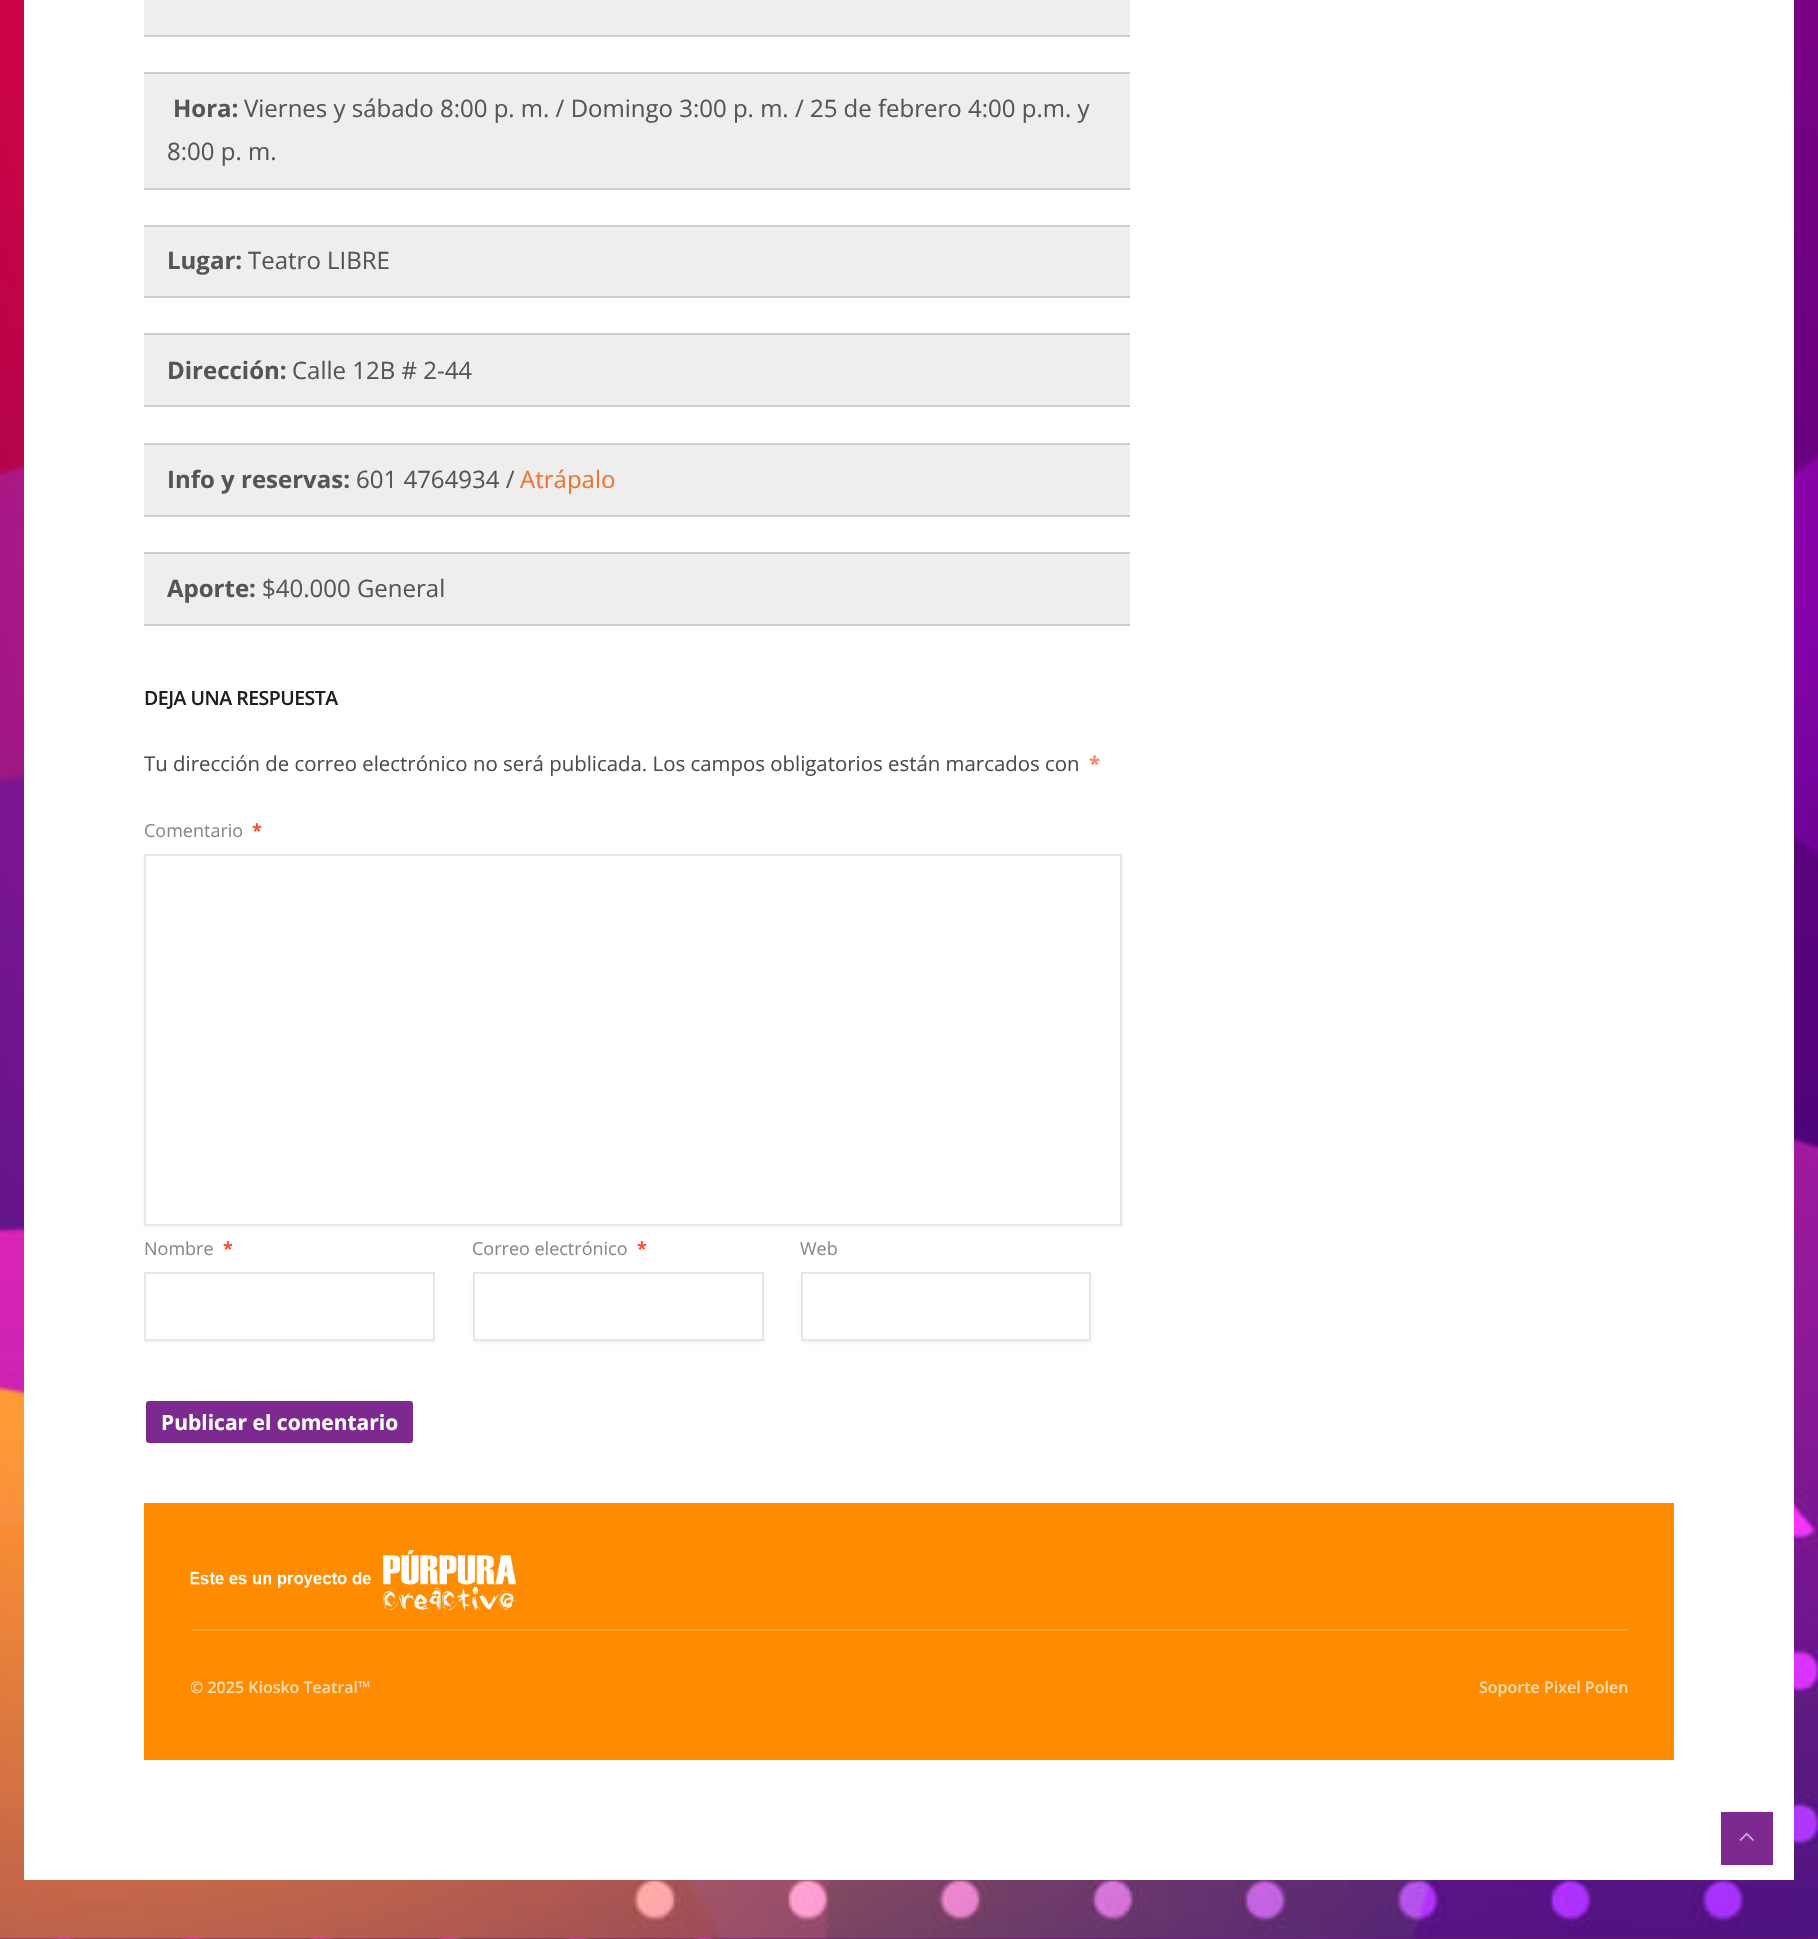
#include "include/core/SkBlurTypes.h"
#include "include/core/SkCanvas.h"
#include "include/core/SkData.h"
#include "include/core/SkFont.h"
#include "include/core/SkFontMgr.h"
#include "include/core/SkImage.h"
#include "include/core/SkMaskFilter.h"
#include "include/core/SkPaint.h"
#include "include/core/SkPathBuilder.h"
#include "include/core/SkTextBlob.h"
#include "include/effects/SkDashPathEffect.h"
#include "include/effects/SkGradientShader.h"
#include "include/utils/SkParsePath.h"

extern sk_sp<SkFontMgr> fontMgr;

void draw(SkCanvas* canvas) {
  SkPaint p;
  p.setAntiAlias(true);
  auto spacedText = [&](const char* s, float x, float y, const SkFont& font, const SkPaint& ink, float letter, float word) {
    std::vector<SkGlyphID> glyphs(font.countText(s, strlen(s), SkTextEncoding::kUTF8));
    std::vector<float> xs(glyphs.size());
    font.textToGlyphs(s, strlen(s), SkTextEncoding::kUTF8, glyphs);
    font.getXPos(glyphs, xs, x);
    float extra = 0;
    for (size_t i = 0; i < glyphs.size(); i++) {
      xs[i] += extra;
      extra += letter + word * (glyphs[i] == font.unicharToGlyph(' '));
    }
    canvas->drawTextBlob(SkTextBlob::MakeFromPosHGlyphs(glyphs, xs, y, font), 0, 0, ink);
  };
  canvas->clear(SK_ColorWHITE);
  canvas->drawImageRect(SkImages::DeferredFromEncodedData(SkData::MakeFromFileName("images/1.png")), SkRect::MakeLTRB(0, 0, 1818, 1939), SkSamplingOptions());
  p.setColor(SK_ColorWHITE);
  canvas->drawRect(SkRect::MakeLTRB(24, 0, 1794, 1880), p);
  p.setColor(SkColorSetRGB(238, 238, 238));
  canvas->drawRect(SkRect::MakeLTRB(144, 0, 1130, 35), p);
  p.setColor(SkColorSetRGB(204, 204, 204));
  canvas->drawRect(SkRect::MakeLTRB(144, 35, 1130, 37), p);
  p.setColor(SkColorSetRGB(238, 238, 238));
  canvas->drawRect(SkRect::MakeLTRB(144, 74, 1130, 188), p);
  p.setColor(SkColorSetRGB(204, 204, 204));
  canvas->drawRect(SkRect::MakeLTRB(144, 72, 1130, 74), p);
  canvas->drawRect(SkRect::MakeLTRB(144, 188, 1130, 190), p);
  p.setColor(SkColorSetRGB(238, 238, 238));
  canvas->drawRect(SkRect::MakeLTRB(144, 227, 1130, 296), p);
  p.setColor(SkColorSetRGB(204, 204, 204));
  canvas->drawRect(SkRect::MakeLTRB(144, 225, 1130, 227), p);
  canvas->drawRect(SkRect::MakeLTRB(144, 296, 1130, 298), p);
  p.setColor(SkColorSetRGB(238, 238, 238));
  canvas->drawRect(SkRect::MakeLTRB(144, 335, 1130, 405), p);
  p.setColor(SkColorSetRGB(204, 204, 204));
  canvas->drawRect(SkRect::MakeLTRB(144, 333, 1130, 335), p);
  canvas->drawRect(SkRect::MakeLTRB(144, 405, 1130, 407), p);
  p.setColor(SkColorSetRGB(238, 238, 238));
  canvas->drawRect(SkRect::MakeLTRB(144, 445, 1130, 515), p);
  p.setColor(SkColorSetRGB(204, 204, 204));
  canvas->drawRect(SkRect::MakeLTRB(144, 443, 1130, 445), p);
  canvas->drawRect(SkRect::MakeLTRB(144, 515, 1130, 517), p);
  p.setColor(SkColorSetRGB(238, 238, 238));
  canvas->drawRect(SkRect::MakeLTRB(144, 554, 1130, 624), p);
  p.setColor(SkColorSetRGB(204, 204, 204));
  canvas->drawRect(SkRect::MakeLTRB(144, 552, 1130, 554), p);
  canvas->drawRect(SkRect::MakeLTRB(144, 624, 1130, 626), p);
  p.setColor(SkColorSetARGB(13, 0, 0, 0));
  p.setMaskFilter(SkMaskFilter::MakeBlur(kNormal_SkBlurStyle, 1.5f));
  canvas->drawRect(SkRect::MakeLTRB(144, 855, 1122, 1227), p);
  p.setMaskFilter(nullptr);
  p.setColor(SK_ColorWHITE);
  canvas->drawRect(SkRect::MakeLTRB(145, 855, 1121, 1225), p);
  p.setStyle(SkPaint::kStroke_Style);
  p.setStrokeWidth(2);
  p.setColor(SkColorSetRGB(230, 230, 230));
  canvas->drawRect(SkRect::MakeLTRB(145, 855, 1121, 1225), p);
  canvas->save();
  canvas->clipRect(SkRect::MakeLTRB(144, 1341, 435, 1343));
  p.setStyle(SkPaint::kFill_Style);
  p.setColor(SkColorSetARGB(13, 0, 0, 0));
  p.setMaskFilter(SkMaskFilter::MakeBlur(kNormal_SkBlurStyle, 1.5f));
  canvas->drawRect(SkRect::MakeLTRB(144, 1274, 435, 1343), p);
  p.setMaskFilter(nullptr);
  canvas->restore();
  p.setStyle(SkPaint::kStroke_Style);
  p.setColor(SkColorSetRGB(230, 230, 230));
  canvas->drawRect(SkRect::MakeLTRB(145, 1273, 434, 1340), p);
  p.setStyle(SkPaint::kFill_Style);
  p.setColor(SkColorSetARGB(13, 0, 0, 0));
  p.setMaskFilter(SkMaskFilter::MakeBlur(kNormal_SkBlurStyle, 1.5f));
  canvas->drawRect(SkRect::MakeLTRB(473, 1274, 764, 1343), p);
  p.setMaskFilter(nullptr);
  p.setColor(SK_ColorWHITE);
  canvas->drawRect(SkRect::MakeLTRB(474, 1273, 763, 1340), p);
  p.setStyle(SkPaint::kStroke_Style);
  p.setColor(SkColorSetRGB(230, 230, 230));
  canvas->drawRect(SkRect::MakeLTRB(474, 1273, 763, 1340), p);
  p.setStyle(SkPaint::kFill_Style);
  p.setColor(SkColorSetARGB(13, 0, 0, 0));
  p.setMaskFilter(SkMaskFilter::MakeBlur(kNormal_SkBlurStyle, 1.5f));
  canvas->drawRect(SkRect::MakeLTRB(801, 1274, 1091, 1343), p);
  p.setMaskFilter(nullptr);
  p.setColor(SK_ColorWHITE);
  canvas->drawRect(SkRect::MakeLTRB(802, 1273, 1090, 1340), p);
  p.setStyle(SkPaint::kStroke_Style);
  p.setColor(SkColorSetRGB(230, 230, 230));
  canvas->drawRect(SkRect::MakeLTRB(802, 1273, 1090, 1340), p);
  p.setStyle(SkPaint::kFill_Style);
  p.setColor(SkColorSetRGB(124, 42, 144));
  canvas->drawRoundRect(SkRect::MakeLTRB(146, 1401, 413, 1443), 3, 3, p);
  p.setColor(SkColorSetRGB(255, 140, 0));
  canvas->drawRect(SkRect::MakeLTRB(144, 1503, 1674, 1760), p);
  canvas->drawImageRect(SkImages::DeferredFromEncodedData(SkData::MakeFromFileName("images/2.png")), SkRect::MakeLTRB(190, 1547, 516, 1611), SkSamplingOptions());
  p.setColor(SkColorSetRGB(250, 158, 46));
  canvas->drawRect(SkRect::MakeLTRB(191, 1629, 1628, 1631), p);
  p.setColor(SkColorSetRGB(124, 42, 144));
  canvas->drawRect(SkRect::MakeLTRB(1721, 1812, 1773, 1865), p);
  canvas->drawImageRect(SkImages::DeferredFromEncodedData(SkData::MakeFromFileName("images/3.png")), SkRect::MakeLTRB(1739, 1832, 1754, 1841), SkSamplingOptions());
  SkFont font1(fontMgr->matchFamilyStyle("Open Sans", SkFontStyle::Bold()), 24);
  font1.setSubpixel(true);
  p.setColor(SkColorSetRGB(85, 85, 85));
  canvas->drawString("Hora:", 173, 117, font1, p);
  SkFont font2(fontMgr->matchFamilyStyle("Open Sans", SkFontStyle::Normal()), 24);
  font2.setSubpixel(true);
  canvas->drawString("Viernes y sábado 8:00 p. m. / Domingo 3:00 p. m. / 25 de febrero 4:00 p.m. y", 244, 117, font2, p);
  canvas->drawString("8:00 p. m.", 167, 160, font2, p);
  canvas->drawString("Lugar:", 167, 269, font1, p);
  canvas->drawString("Teatro LIBRE", 248, 269, font2, p);
  canvas->drawString("Dirección:", 167, 379, font1, p);
  canvas->drawString("Calle 12B # 2-44", 292, 379, font2, p);
  canvas->drawString("Info y reservas:", 167, 488, font1, p);
  canvas->drawString("601 4764934 /", 356, 488, font2, p);
  p.setColor(SkColorSetRGB(240, 115, 48));
  canvas->drawString("Atrápalo", 520, 488, font2, p);
  p.setColor(SkColorSetRGB(85, 85, 85));
  canvas->drawString("Aporte:", 167, 597, font1, p);
  canvas->drawString("$40.000 General", 262, 597, font2, p);
  SkFont font3(fontMgr->matchFamilyStyle("Open Sans", SkFontStyle(600, SkFontStyle::kNormal_Width, SkFontStyle::kUpright_Slant)), 19.5f);
  font3.setSubpixel(true);
  p.setColor(SkColorSetRGB(31, 31, 31));
  spacedText("DEJA UNA RESPUESTA", 144, 705, font3, p, -0.5f, 0);
  SkFont font4(fontMgr->matchFamilyStyle("Open Sans", SkFontStyle::Normal()), 20.4f);
  font4.setSubpixel(true);
  p.setColor(SkColorSetRGB(77, 77, 77));
  canvas->drawString("Tu dirección de correo electrónico no será publicada. Los campos obligatorios están marcados con", 144, 771, font4, p);
  SkFont font5(fontMgr->matchFamilyStyle("Open Sans", SkFontStyle::Bold()), 20.4f);
  font5.setSubpixel(true);
  p.setColor(SkColorSetRGB(255, 129, 112));
  canvas->drawString("*", 1089, 771, font5, p);
  SkFont font6(fontMgr->matchFamilyStyle("Open Sans", SkFontStyle::Normal()), 18);
  font6.setSubpixel(true);
  p.setColor(SkColorSetRGB(136, 136, 136));
  canvas->drawString("Comentario", 144, 837, font6, p);
  SkFont font7(fontMgr->matchFamilyStyle("Open Sans", SkFontStyle::Bold()), 18);
  font7.setSubpixel(true);
  p.setColor(SkColorSetRGB(255, 75, 51));
  canvas->drawString("*", 252, 837, font7, p);
  p.setColor(SkColorSetRGB(136, 136, 136));
  canvas->drawString("Nombre", 144, 1255, font6, p);
  p.setColor(SkColorSetRGB(255, 75, 51));
  canvas->drawString("*", 223, 1255, font7, p);
  p.setColor(SkColorSetRGB(136, 136, 136));
  canvas->drawString("Correo electrónico", 472, 1255, font6, p);
  p.setColor(SkColorSetRGB(255, 75, 51));
  canvas->drawString("*", 637, 1255, font7, p);
  p.setColor(SkColorSetRGB(136, 136, 136));
  canvas->drawString("Web", 800, 1255, font6, p);
  SkFont font8(fontMgr->matchFamilyStyle("Open Sans", SkFontStyle::Bold()), 21);
  font8.setSubpixel(true);
  p.setColor(SK_ColorWHITE);
  canvas->drawString("Publicar el comentario", 161, 1430, font8, p);
  canvas->save();
  canvas->clipRect(SkRect::MakeLTRB(191, 1661, 1628, 1715));
  SkFont font9(fontMgr->matchFamilyStyle("Open Sans", SkFontStyle(600, SkFontStyle::kNormal_Width, SkFontStyle::kUpright_Slant)), 16);
  font9.setSubpixel(true);
  p.setColor(SkColorSetRGB(255, 221, 179));
  canvas->drawString("© 2025 Kiosko Teatral™", 190, 1693, font9, p);
  canvas->restore();
  canvas->drawString("Soporte Pixel Polen", 1479, 1693, font9, p);
}
